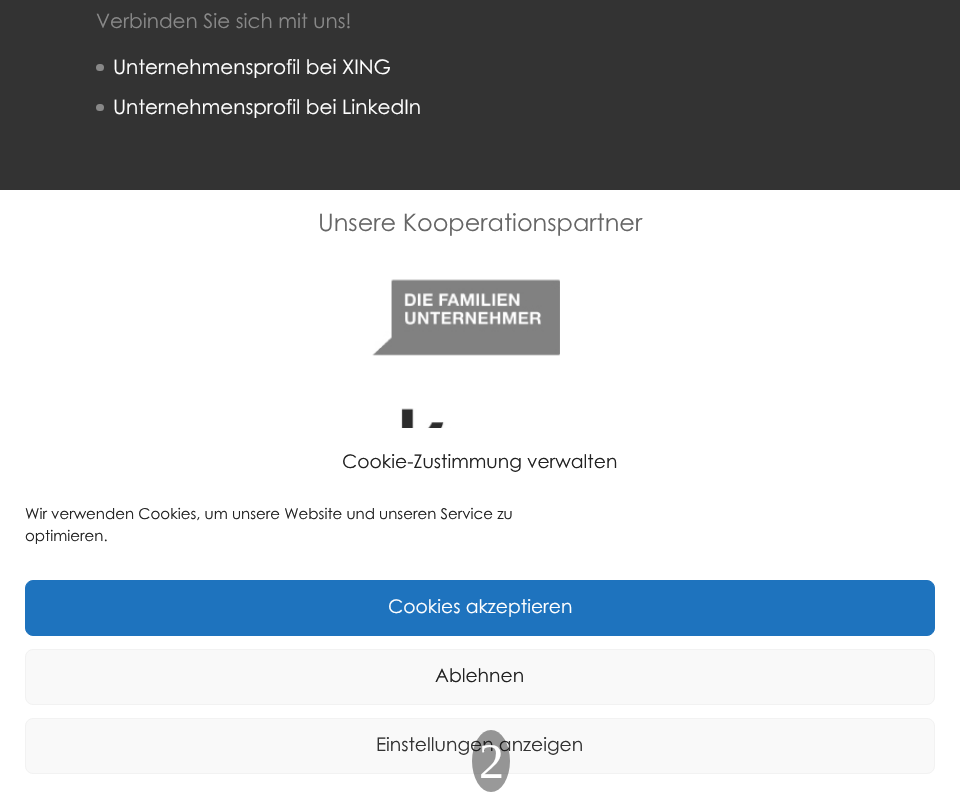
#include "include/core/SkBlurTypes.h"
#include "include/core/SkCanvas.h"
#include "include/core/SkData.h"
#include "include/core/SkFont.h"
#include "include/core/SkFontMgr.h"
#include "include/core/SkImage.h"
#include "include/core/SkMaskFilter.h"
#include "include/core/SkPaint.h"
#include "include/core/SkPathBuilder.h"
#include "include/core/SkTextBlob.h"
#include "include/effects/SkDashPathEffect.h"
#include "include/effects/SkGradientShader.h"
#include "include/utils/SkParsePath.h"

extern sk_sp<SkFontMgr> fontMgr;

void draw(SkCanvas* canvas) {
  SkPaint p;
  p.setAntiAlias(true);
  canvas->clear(SkColorSetRGB(51, 51, 51));
  p.setColor(SkColorSetRGB(136, 136, 136));
  canvas->drawRoundRect(SkRect::MakeLTRB(96, 64, 104, 71), 3.5f, 3.5f, p);
  canvas->drawRoundRect(SkRect::MakeLTRB(96, 104, 104, 111), 3.5f, 3.5f, p);
  p.setColor(SK_ColorWHITE);
  canvas->drawRect(SkRect::MakeLTRB(0, 190, 960, 805), p);
  canvas->drawImageRect(SkImages::DeferredFromEncodedData(SkData::MakeFromFileName("images/1.png")), SkRect::MakeLTRB(372, 279, 560, 356), SkSamplingOptions());
  canvas->drawImageRect(SkImages::DeferredFromEncodedData(SkData::MakeFromFileName("images/2.png")), SkRect::MakeLTRB(400, 408, 534, 428), SkSamplingOptions());
  p.setColor(SkColorSetRGB(30, 115, 190));
  canvas->drawRoundRect(SkRect::MakeLTRB(25.5f, 580.5f, 934.5f, 635.5f), 7.5f, 7.5f, p);
  p.setStyle(SkPaint::kStroke_Style);
  p.setStrokeWidth(1);
  canvas->drawRoundRect(SkRect::MakeLTRB(25.5f, 580.5f, 934.5f, 635.5f), 7.5f, 7.5f, p);
  p.setStyle(SkPaint::kFill_Style);
  p.setColor(SkColorSetRGB(249, 249, 249));
  canvas->drawRoundRect(SkRect::MakeLTRB(25.5f, 649.5f, 934.5f, 704.5f), 7.5f, 7.5f, p);
  p.setStyle(SkPaint::kStroke_Style);
  p.setColor(SkColorSetRGB(242, 242, 242));
  canvas->drawRoundRect(SkRect::MakeLTRB(25.5f, 649.5f, 934.5f, 704.5f), 7.5f, 7.5f, p);
  p.setStyle(SkPaint::kFill_Style);
  p.setColor(SkColorSetRGB(249, 249, 249));
  canvas->drawRoundRect(SkRect::MakeLTRB(25.5f, 718.5f, 934.5f, 773.5f), 7.5f, 7.5f, p);
  p.setStyle(SkPaint::kStroke_Style);
  p.setColor(SkColorSetRGB(242, 242, 242));
  canvas->drawRoundRect(SkRect::MakeLTRB(25.5f, 718.5f, 934.5f, 773.5f), 7.5f, 7.5f, p);
  SkFont font1(fontMgr->matchFamilyStyle("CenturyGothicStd", SkFontStyle::Normal()), 20);
  font1.setSubpixel(true);
  p.setStyle(SkPaint::kFill_Style);
  p.setColor(SkColorSetRGB(136, 136, 136));
  canvas->drawString("Verbinden Sie sich mit uns!", 96, 28, font1, p);
  p.setColor(SK_ColorWHITE);
  canvas->drawString("Unternehmensprofil bei XING", 113, 74, font1, p);
  canvas->drawString("Unternehmensprofil bei LinkedIn", 113, 114, font1, p);
  SkFont font2(fontMgr->matchFamilyStyle("CenturyGothicStd", SkFontStyle::Normal()), 24);
  font2.setSubpixel(true);
  p.setColor(SkColorSetRGB(102, 102, 102));
  canvas->drawString("Unsere Kooperationspartner", 318, 231, font2, p);
  SkFont font3(fontMgr->matchFamilyStyle("CenturyGothicStd", SkFontStyle::Normal()), 18.75f);
  font3.setSubpixel(true);
  p.setColor(SkColorSetRGB(34, 34, 34));
  canvas->drawString("Cookie-Zustimmung verwalten", 342, 468, font3, p);
  SkFont font4(fontMgr->matchFamilyStyle("CenturyGothicStd", SkFontStyle::Normal()), 15);
  font4.setSubpixel(true);
  canvas->drawString("Wir verwenden Cookies, um unsere Website und unseren Service zu", 25, 519, font4, p);
  canvas->drawString("optimieren.", 25, 541, font4, p);
  p.setColor(SK_ColorWHITE);
  canvas->drawString("Cookies akzeptieren", 388, 613, font3, p);
  p.setColor(SkColorSetRGB(34, 34, 34));
  canvas->drawString("Ablehnen", 435, 682, font3, p);
  p.setColor(SkColorSetRGB(51, 51, 51));
  canvas->drawString("Einstellungen anzeigen", 376, 751, font3, p);
  p.setColor(SkColorSetARGB(102, 0, 0, 0));
  canvas->drawOval(SkRect::MakeLTRB(472, 730, 510, 792), p);
  SkFont font5(fontMgr->matchFamilyStyle("Liberation Serif", SkFontStyle::Normal()), 50);
  font5.setSubpixel(true);
  p.setColor(SK_ColorWHITE);
  canvas->drawString("2", 479, 778, font5, p);
}
